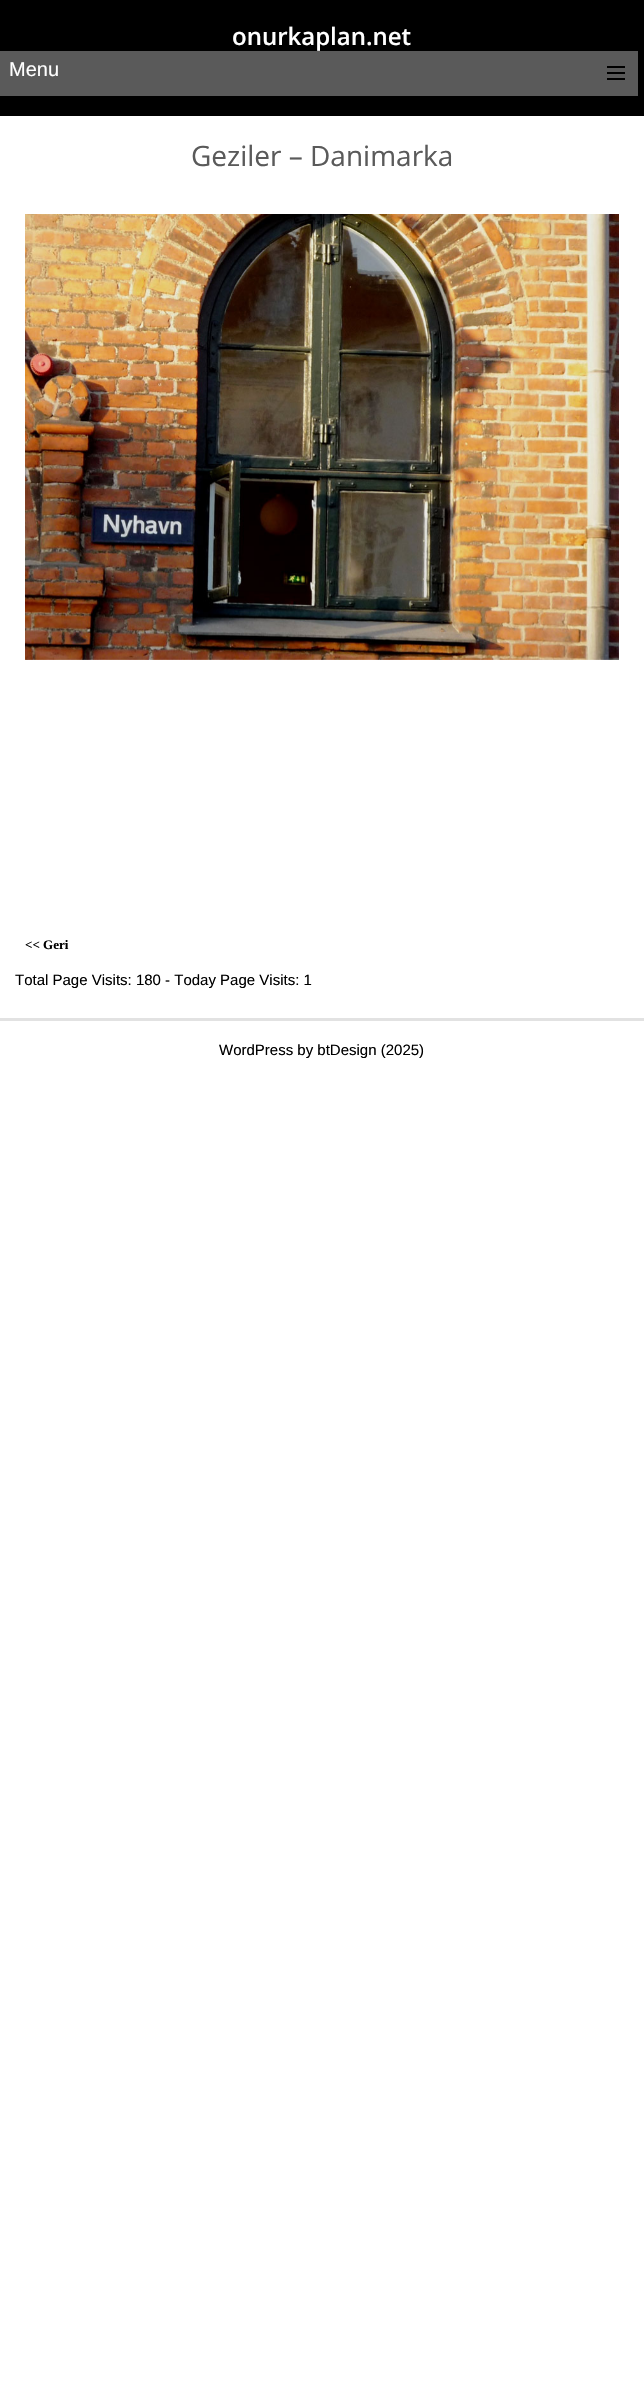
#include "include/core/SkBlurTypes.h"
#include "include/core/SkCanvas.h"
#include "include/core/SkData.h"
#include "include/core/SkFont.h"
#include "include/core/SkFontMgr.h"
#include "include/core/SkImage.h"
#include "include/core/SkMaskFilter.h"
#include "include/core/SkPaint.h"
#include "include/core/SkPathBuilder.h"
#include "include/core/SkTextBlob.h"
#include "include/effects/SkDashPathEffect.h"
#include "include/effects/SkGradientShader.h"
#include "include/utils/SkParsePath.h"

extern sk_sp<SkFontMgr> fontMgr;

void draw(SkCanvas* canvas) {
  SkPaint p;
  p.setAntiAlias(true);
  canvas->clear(SK_ColorWHITE);
  p.setColor(SK_ColorBLACK);
  canvas->drawRect(SkRect::MakeLTRB(0, 0, 644, 116), p);
  p.setColor(SkColorSetRGB(90, 90, 90));
  canvas->drawRect(SkRect::MakeLTRB(0, 51, 638, 96), p);
  p.setColor(SK_ColorBLACK);
  canvas->drawRect(SkRect::MakeLTRB(607, 78, 625, 80), p);
  canvas->drawRect(SkRect::MakeLTRB(607, 72, 625, 74), p);
  canvas->drawRect(SkRect::MakeLTRB(607, 66, 625, 68), p);
  canvas->drawImageRect(SkImages::DeferredFromEncodedData(SkData::MakeFromFileName("images/1.png")), SkRect::MakeLTRB(25, 214, 619, 660), SkSamplingOptions());
  p.setColor(SkColorSetRGB(226, 226, 226));
  canvas->drawRect(SkRect::MakeLTRB(0, 1018, 644, 1021), p);
  SkFont font1(fontMgr->matchFamilyStyle("Open Sans", SkFontStyle(600, SkFontStyle::kNormal_Width, SkFontStyle::kUpright_Slant)), 24);
  font1.setSubpixel(true);
  p.setColor(SK_ColorWHITE);
  canvas->drawString("onurkaplan.net", 232, 45, font1, p);
  SkFont font2(fontMgr->matchFamilyStyle("Liberation Sans", SkFontStyle::Normal()), 20);
  font2.setSubpixel(true);
  canvas->drawString("Menu", 9, 76, font2, p);
  SkFont font3(fontMgr->matchFamilyStyle("Open Sans", SkFontStyle::Normal()), 28);
  font3.setSubpixel(true);
  p.setColor(SkColorSetRGB(90, 90, 90));
  canvas->drawString("Geziler – Danimarka", 191, 166, font3, p);
  SkFont font4(fontMgr->matchFamilyStyle("Liberation Serif", SkFontStyle::Bold()), 13);
  font4.setSubpixel(true);
  p.setColor(SK_ColorBLACK);
  canvas->drawString("<< Geri", 25, 949, font4, p);
  SkFont font5(fontMgr->matchFamilyStyle("Liberation Sans", SkFontStyle::Normal()), 15);
  font5.setSubpixel(true);
  canvas->drawString("Total Page Visits: 180 - Today Page Visits: 1", 15, 985, font5, p);
  canvas->drawString("WordPress by btDesign (2025)", 219, 1055, font5, p);
}
